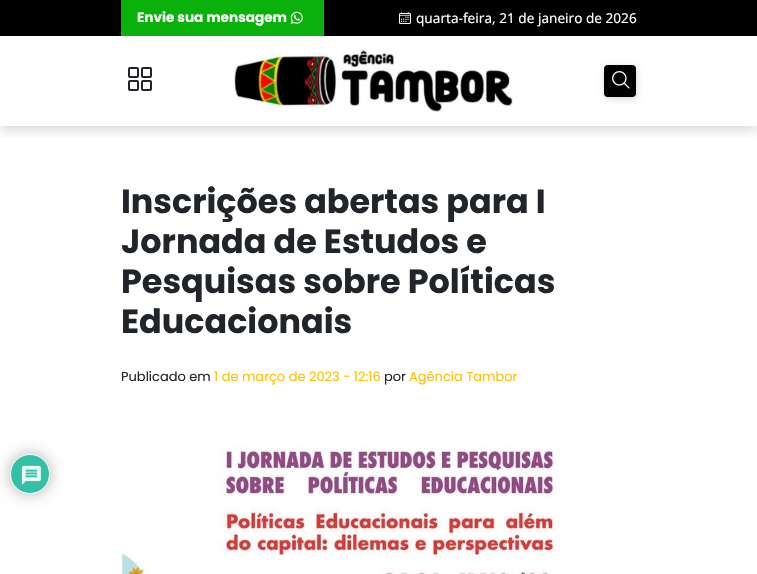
#include "include/core/SkBlurTypes.h"
#include "include/core/SkCanvas.h"
#include "include/core/SkData.h"
#include "include/core/SkFont.h"
#include "include/core/SkFontMgr.h"
#include "include/core/SkImage.h"
#include "include/core/SkMaskFilter.h"
#include "include/core/SkPaint.h"
#include "include/core/SkPathBuilder.h"
#include "include/core/SkTextBlob.h"
#include "include/effects/SkDashPathEffect.h"
#include "include/effects/SkGradientShader.h"
#include "include/utils/SkParsePath.h"

extern sk_sp<SkFontMgr> fontMgr;

void draw(SkCanvas* canvas) {
  SkPaint p;
  p.setAntiAlias(true);
  canvas->clear(SK_ColorWHITE);
  canvas->save();
  canvas->clipRect(SkRect::MakeLTRB(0, 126, 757, 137));
  p.setColor(SkColorSetARGB(38, 0, 0, 0));
  p.setMaskFilter(SkMaskFilter::MakeBlur(kNormal_SkBlurStyle, 6));
  canvas->drawRect(SkRect::MakeLTRB(0, 4, 757, 130), p);
  p.setMaskFilter(nullptr);
  canvas->restore();
  p.setColor(SK_ColorBLACK);
  canvas->drawRect(SkRect::MakeLTRB(0, 0, 757, 36), p);
  p.setColor(SkColorSetRGB(10, 177, 10));
  canvas->drawRect(SkRect::MakeLTRB(121, 0, 324, 36), p);
  canvas->drawImageRect(SkImages::DeferredFromEncodedData(SkData::MakeFromFileName("images/1.png")), SkRect::MakeLTRB(290, 11, 303, 24), SkSamplingOptions());
  canvas->drawImageRect(SkImages::DeferredFromEncodedData(SkData::MakeFromFileName("images/2.png")), SkRect::MakeLTRB(399, 11, 411, 24), SkSamplingOptions());
  p.setStyle(SkPaint::kStroke_Style);
  p.setStrokeWidth(2);
  p.setColor(SkColorSetRGB(33, 37, 41));
  canvas->drawRoundRect(SkRect::MakeLTRB(129, 68, 138, 77), 1, 1, p);
  canvas->drawRoundRect(SkRect::MakeLTRB(142, 68, 151, 77), 1, 1, p);
  canvas->drawRoundRect(SkRect::MakeLTRB(129, 81, 138, 90), 1, 1, p);
  canvas->drawRoundRect(SkRect::MakeLTRB(142, 81, 151, 90), 1, 1, p);
  canvas->drawImageRect(SkImages::DeferredFromEncodedData(SkData::MakeFromFileName("images/3.png")), SkRect::MakeLTRB(234, 50, 513, 112), SkSamplingOptions());
  p.setStyle(SkPaint::kFill_Style);
  p.setColor(SkColorSetARGB(38, 0, 0, 0));
  p.setMaskFilter(SkMaskFilter::MakeBlur(kNormal_SkBlurStyle, 3));
  canvas->drawRoundRect(SkRect::MakeLTRB(605, 67, 637, 99), 4, 4, p);
  p.setMaskFilter(nullptr);
  p.setColor(SK_ColorBLACK);
  canvas->drawRoundRect(SkRect::MakeLTRB(604, 65, 636, 97), 4, 4, p);
  canvas->drawImageRect(SkImages::DeferredFromEncodedData(SkData::MakeFromFileName("images/4.png")), SkRect::MakeLTRB(612, 71, 630, 89), SkSamplingOptions());
  canvas->drawImageRect(SkImages::DeferredFromEncodedData(SkData::MakeFromFileName("images/5.png")), SkRect::MakeLTRB(121, 442, 562, 574), SkSamplingOptions());
  p.setColor(SkColorSetRGB(179, 179, 179));
  p.setMaskFilter(SkMaskFilter::MakeBlur(kNormal_SkBlurStyle, 7.5f));
  canvas->drawRoundRect(SkRect::MakeLTRB(10, 454, 50, 494), 20, 20, p);
  p.setMaskFilter(nullptr);
  p.setColor(SkColorSetRGB(52, 192, 164));
  canvas->drawCircle(30, 474, 19.5f, p);
  p.setStyle(SkPaint::kStroke_Style);
  p.setStrokeWidth(1);
  p.setColor(SK_ColorWHITE);
  canvas->drawCircle(30, 474, 19.5f, p);
  canvas->drawImageRect(SkImages::DeferredFromEncodedData(SkData::MakeFromFileName("images/6.png")), SkRect::MakeLTRB(21, 465, 41, 485), SkSamplingOptions());
  SkFont font1(fontMgr->matchFamilyStyle("Poppins", SkFontStyle::Bold()), 13.6f);
  font1.setSubpixel(true);
  p.setStyle(SkPaint::kFill_Style);
  canvas->drawString("Envie sua mensagem", 137, 22, font1, p);
  SkFont font2(fontMgr->matchFamilyStyle("Noto Sans", SkFontStyle::Normal()), 13.6f);
  font2.setSubpixel(true);
  canvas->drawString("quarta-feira, 21 de janeiro de 2026", 416, 23, font2, p);
  SkFont font3(fontMgr->matchFamilyStyle("Poppins", SkFontStyle::Bold()), 33.4f);
  font3.setSubpixel(true);
  p.setColor(SkColorSetRGB(33, 37, 41));
  canvas->drawString("Inscrições abertas para I", 121, 213, font3, p);
  canvas->drawString("Jornada de Estudos e", 121, 253, font3, p);
  canvas->drawString("Pesquisas sobre Políticas", 121, 293, font3, p);
  canvas->drawString("Educacionais", 121, 333, font3, p);
  SkFont font4(fontMgr->matchFamilyStyle("Poppins", SkFontStyle::Normal()), 13);
  font4.setSubpixel(true);
  canvas->drawString("Publicado em", 121, 381, font4, p);
  p.setColor(SkColorSetRGB(255, 193, 7));
  canvas->drawString("1 de março de 2023 - 12:16", 214, 381, font4, p);
  p.setColor(SkColorSetRGB(33, 37, 41));
  canvas->drawString("por", 384, 381, font4, p);
  p.setColor(SkColorSetRGB(255, 193, 7));
  canvas->drawString("Agência Tambor", 409, 381, font4, p);
}
